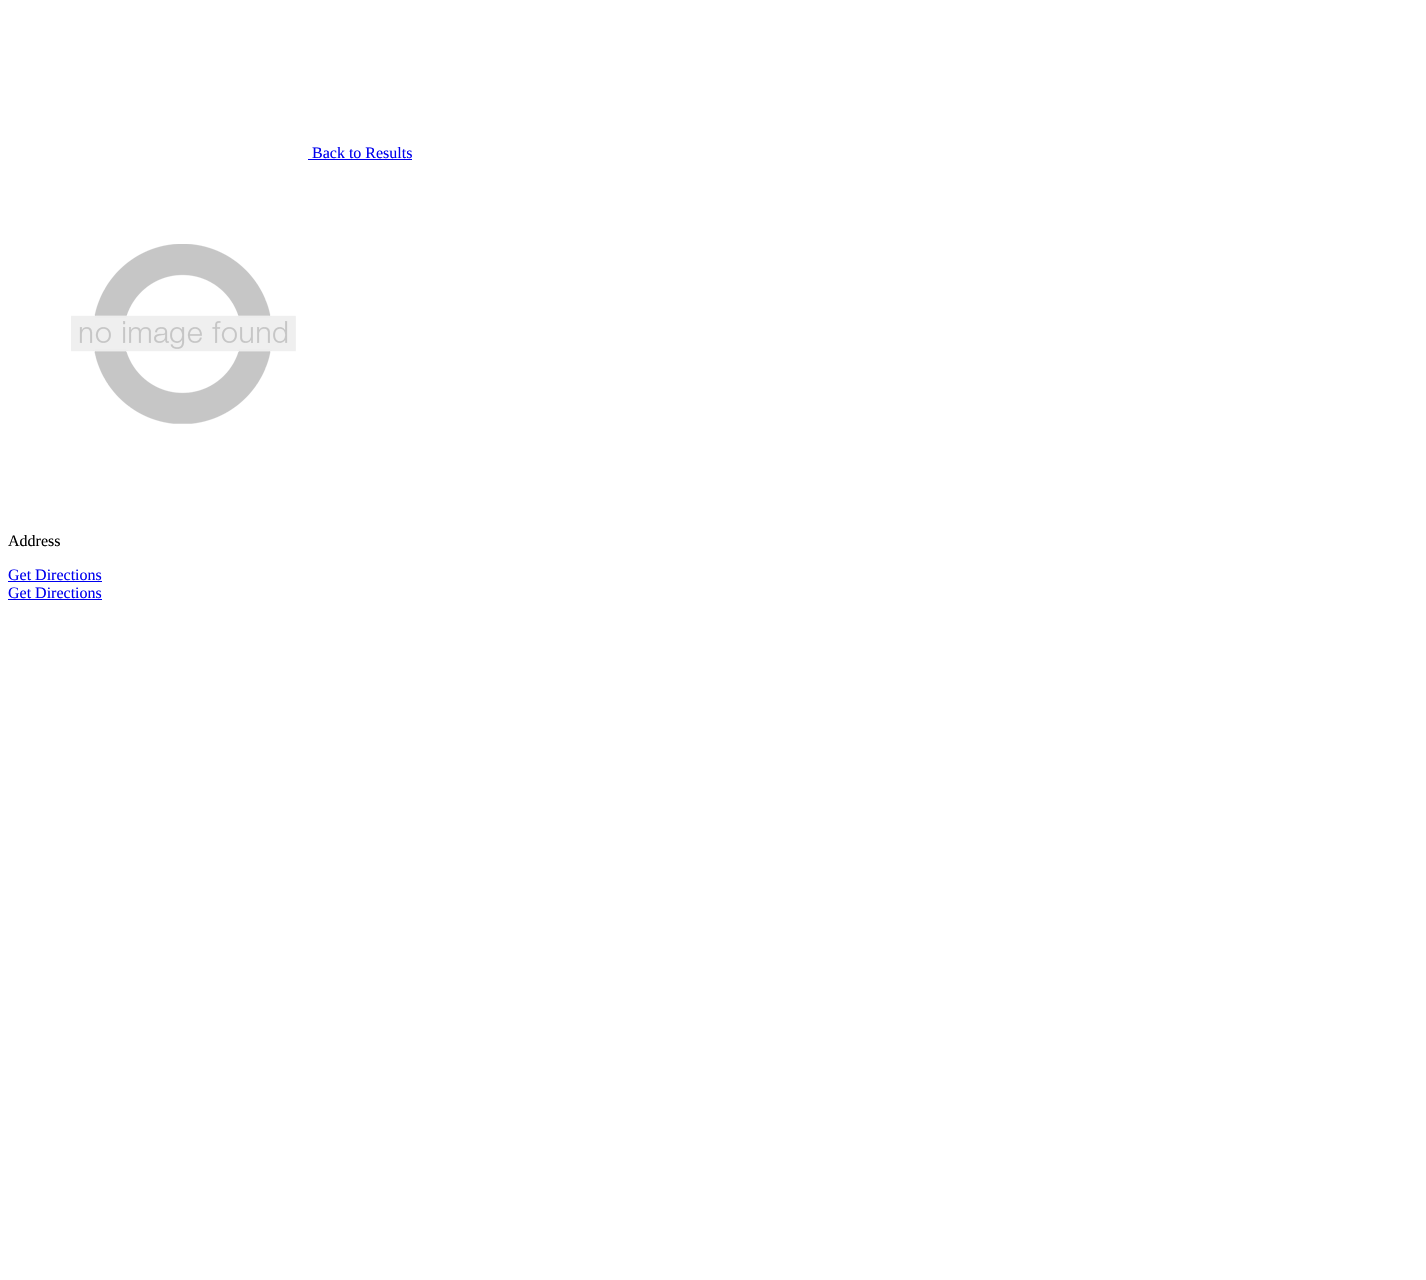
#include "include/core/SkBlurTypes.h"
#include "include/core/SkCanvas.h"
#include "include/core/SkData.h"
#include "include/core/SkFont.h"
#include "include/core/SkFontMgr.h"
#include "include/core/SkImage.h"
#include "include/core/SkMaskFilter.h"
#include "include/core/SkPaint.h"
#include "include/core/SkPathBuilder.h"
#include "include/core/SkTextBlob.h"
#include "include/effects/SkDashPathEffect.h"
#include "include/effects/SkGradientShader.h"
#include "include/utils/SkParsePath.h"

extern sk_sp<SkFontMgr> fontMgr;

void draw(SkCanvas* canvas) {
  SkPaint p;
  p.setAntiAlias(true);
  canvas->clear(SK_ColorWHITE);
  p.setColor(SkColorSetRGB(0, 0, 238));
  canvas->drawRect(SkRect::MakeLTRB(308, 159, 412, 160), p);
  canvas->drawImageRect(SkImages::DeferredFromEncodedData(SkData::MakeFromFileName("images/1.png")), SkRect::MakeLTRB(71, 244, 296, 424), SkSamplingOptions());
  canvas->drawRect(SkRect::MakeLTRB(8, 581, 102, 582), p);
  canvas->drawRect(SkRect::MakeLTRB(8, 599, 102, 600), p);
  SkFont font1(fontMgr->matchFamilyStyle("Liberation Serif", SkFontStyle::Normal()), 16);
  font1.setSubpixel(true);
  canvas->drawString("Back to Results", 312, 158, font1, p);
  p.setColor(SK_ColorBLACK);
  canvas->drawString("Address", 8, 546, font1, p);
  p.setColor(SkColorSetRGB(0, 0, 238));
  canvas->drawString("Get Directions", 8, 580, font1, p);
  canvas->drawString("Get Directions", 8, 598, font1, p);
}
